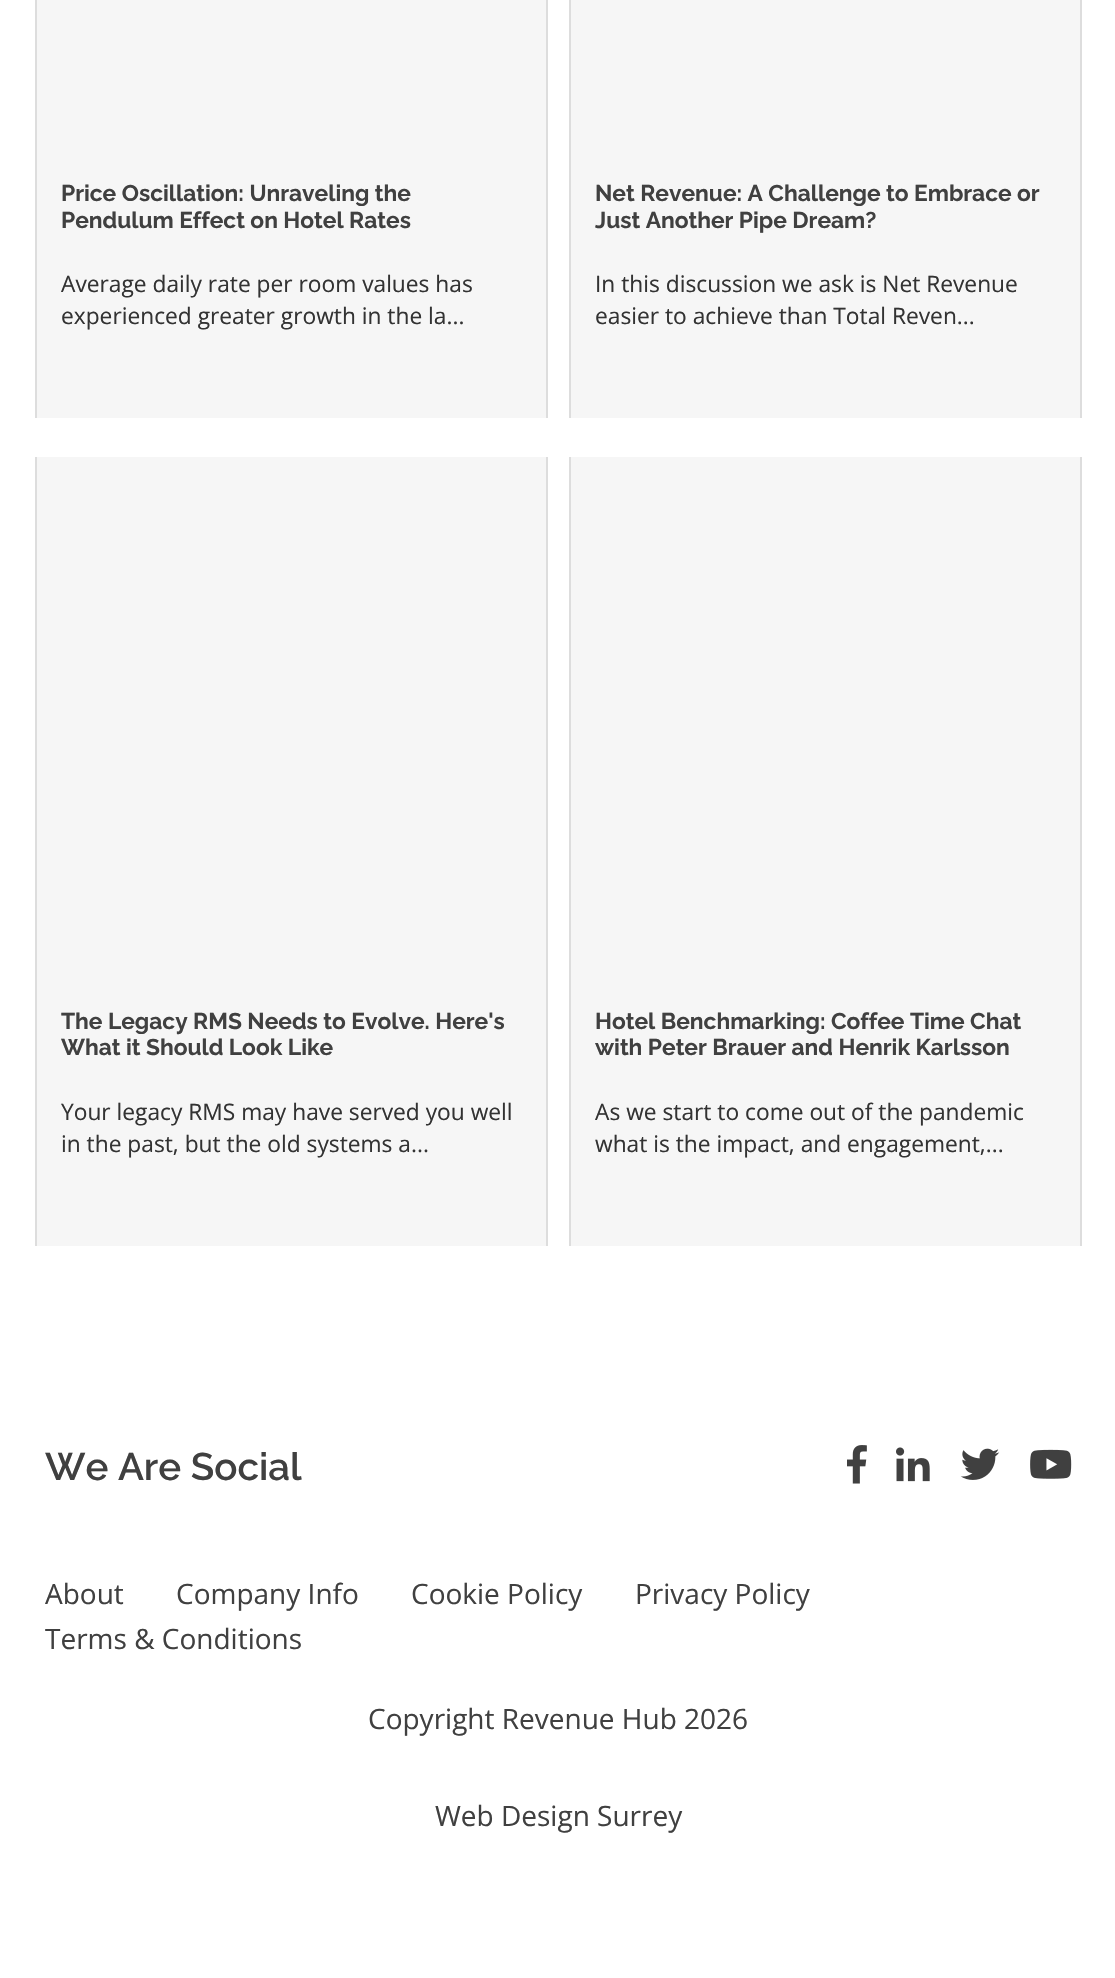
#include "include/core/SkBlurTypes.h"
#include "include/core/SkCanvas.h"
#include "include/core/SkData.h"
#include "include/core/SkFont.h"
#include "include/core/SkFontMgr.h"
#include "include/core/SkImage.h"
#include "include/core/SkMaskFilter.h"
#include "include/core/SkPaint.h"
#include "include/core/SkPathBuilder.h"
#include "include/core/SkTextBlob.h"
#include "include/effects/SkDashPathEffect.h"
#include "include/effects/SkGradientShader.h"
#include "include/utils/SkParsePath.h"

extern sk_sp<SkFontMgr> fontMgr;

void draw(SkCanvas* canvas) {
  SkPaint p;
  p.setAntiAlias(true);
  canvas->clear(SK_ColorWHITE);
  p.setColor(SkColorSetRGB(221, 221, 221));
  canvas->drawRect(SkRect::MakeLTRB(546, 0, 548, 418), p);
  canvas->drawRect(SkRect::MakeLTRB(35, 0, 37, 418), p);
  p.setColor(SkColorSetRGB(246, 246, 246));
  canvas->drawRect(SkRect::MakeLTRB(37, 0, 546, 418), p);
  p.setColor(SkColorSetRGB(221, 221, 221));
  canvas->drawRect(SkRect::MakeLTRB(1080, 0, 1082, 418), p);
  canvas->drawRect(SkRect::MakeLTRB(569, 0, 571, 418), p);
  p.setColor(SkColorSetRGB(246, 246, 246));
  canvas->drawRect(SkRect::MakeLTRB(571, 0, 1080, 418), p);
  p.setColor(SkColorSetRGB(221, 221, 221));
  canvas->drawRect(SkRect::MakeLTRB(546, 457, 548, 1246), p);
  canvas->drawRect(SkRect::MakeLTRB(35, 457, 37, 1246), p);
  p.setColor(SkColorSetRGB(246, 246, 246));
  canvas->drawRect(SkRect::MakeLTRB(37, 457, 546, 1246), p);
  p.setColor(SkColorSetRGB(221, 221, 221));
  canvas->drawRect(SkRect::MakeLTRB(1080, 457, 1082, 1246), p);
  canvas->drawRect(SkRect::MakeLTRB(569, 457, 571, 1246), p);
  p.setColor(SkColorSetRGB(246, 246, 246));
  canvas->drawRect(SkRect::MakeLTRB(571, 457, 1080, 1246), p);
  canvas->drawImageRect(SkImages::DeferredFromEncodedData(SkData::MakeFromFileName("images/1.png")), SkRect::MakeLTRB(847, 1445, 867, 1484), SkSamplingOptions());
  canvas->drawImageRect(SkImages::DeferredFromEncodedData(SkData::MakeFromFileName("images/2.png")), SkRect::MakeLTRB(896, 1447, 930, 1482), SkSamplingOptions());
  canvas->drawImageRect(SkImages::DeferredFromEncodedData(SkData::MakeFromFileName("images/3.png")), SkRect::MakeLTRB(960, 1448, 1000, 1480), SkSamplingOptions());
  canvas->drawImageRect(SkImages::DeferredFromEncodedData(SkData::MakeFromFileName("images/4.png")), SkRect::MakeLTRB(1030, 1449, 1072, 1479), SkSamplingOptions());
  SkFont font1(fontMgr->matchFamilyStyle("Raleway", SkFontStyle::Bold()), 22.75f);
  font1.setSubpixel(true);
  p.setColor(SkColorSetRGB(64, 64, 64));
  canvas->drawString("Price Oscillation: Unraveling the", 61, 201, font1, p);
  canvas->drawString("Pendulum Effect on Hotel Rates", 61, 228, font1, p);
  SkFont font2(fontMgr->matchFamilyStyle("Open Sans", SkFontStyle::Normal()), 22.75f);
  font2.setSubpixel(true);
  p.setColor(SkColorSetRGB(51, 51, 51));
  canvas->drawString("Average daily rate per room values has", 61, 292, font2, p);
  canvas->drawString("experienced greater growth in the la...", 61, 324, font2, p);
  p.setColor(SkColorSetRGB(64, 64, 64));
  canvas->drawString("Net Revenue: A Challenge to Embrace or", 595, 201, font1, p);
  canvas->drawString("Just Another Pipe Dream?", 595, 228, font1, p);
  p.setColor(SkColorSetRGB(51, 51, 51));
  canvas->drawString("In this discussion we ask is Net Revenue", 595, 292, font2, p);
  canvas->drawString("easier to achieve than Total Reven...", 595, 324, font2, p);
  p.setColor(SkColorSetRGB(64, 64, 64));
  canvas->drawString("The Legacy RMS Needs to Evolve. Here's", 61, 1029, font1, p);
  canvas->drawString("What it Should Look Like", 61, 1055, font1, p);
  p.setColor(SkColorSetRGB(51, 51, 51));
  canvas->drawString("Your legacy RMS may have served you well", 61, 1120, font2, p);
  canvas->drawString("in the past, but the old systems a...", 61, 1152, font2, p);
  p.setColor(SkColorSetRGB(64, 64, 64));
  canvas->drawString("Hotel Benchmarking: Coffee Time Chat", 595, 1029, font1, p);
  canvas->drawString("with Peter Brauer and Henrik Karlsson", 595, 1055, font1, p);
  p.setColor(SkColorSetRGB(51, 51, 51));
  canvas->drawString("As we start to come out of the pandemic", 595, 1120, font2, p);
  canvas->drawString("what is the impact, and engagement,...", 595, 1152, font2, p);
  SkFont font3(fontMgr->matchFamilyStyle("Raleway", SkFontStyle(600, SkFontStyle::kNormal_Width, SkFontStyle::kUpright_Slant)), 38.5f);
  font3.setSubpixel(true);
  p.setColor(SkColorSetRGB(64, 64, 64));
  canvas->drawString("We Are Social", 45, 1480, font3, p);
  SkFont font4(fontMgr->matchFamilyStyle("Open Sans", SkFontStyle::Normal()), 28);
  font4.setSubpixel(true);
  canvas->drawString("About", 45, 1604, font4, p);
  canvas->drawString("Company Info", 176, 1604, font4, p);
  canvas->drawString("Cookie Policy", 411, 1604, font4, p);
  canvas->drawString("Privacy Policy", 635, 1604, font4, p);
  canvas->drawString("Terms & Conditions", 45, 1649, font4, p);
  canvas->drawString("Copyright Revenue Hub 2026", 368, 1729, font4, p);
  canvas->drawString("Web Design Surrey", 435, 1826, font4, p);
}
